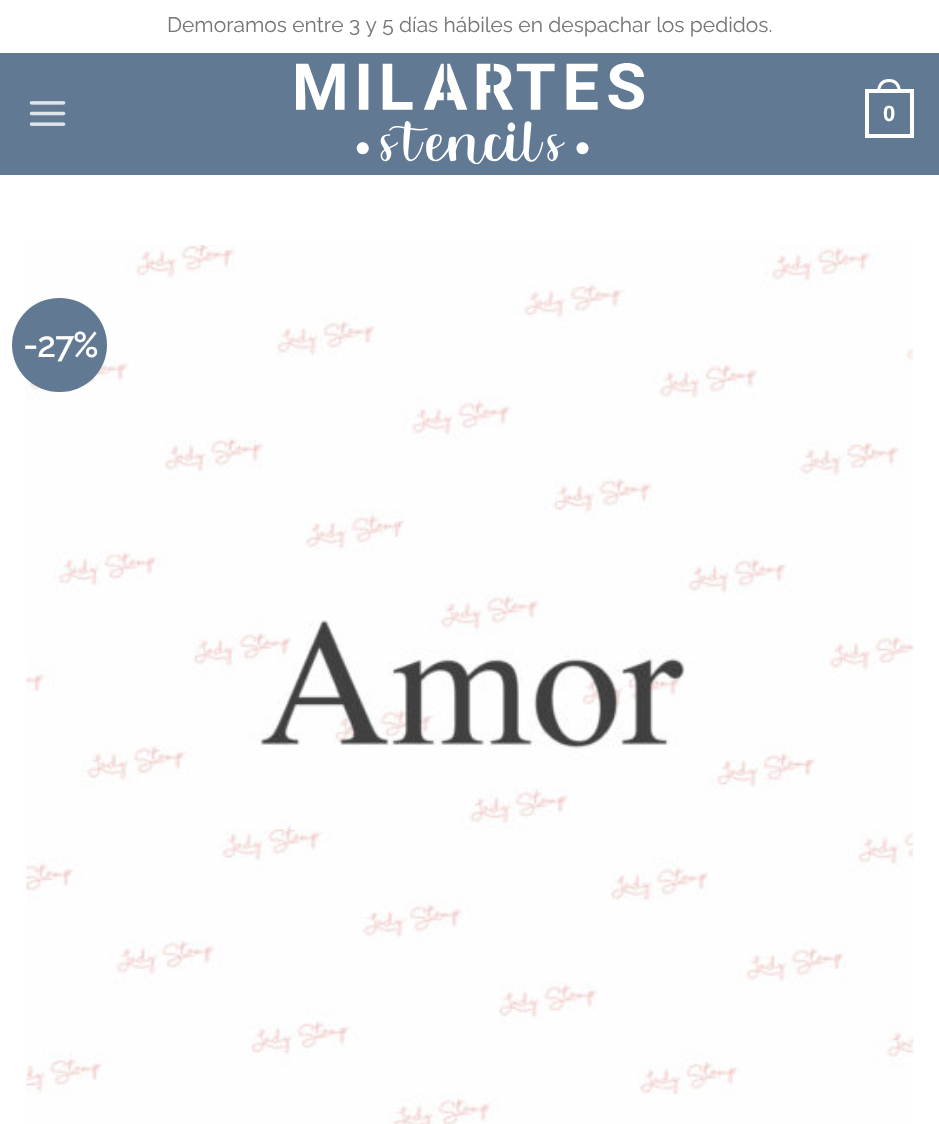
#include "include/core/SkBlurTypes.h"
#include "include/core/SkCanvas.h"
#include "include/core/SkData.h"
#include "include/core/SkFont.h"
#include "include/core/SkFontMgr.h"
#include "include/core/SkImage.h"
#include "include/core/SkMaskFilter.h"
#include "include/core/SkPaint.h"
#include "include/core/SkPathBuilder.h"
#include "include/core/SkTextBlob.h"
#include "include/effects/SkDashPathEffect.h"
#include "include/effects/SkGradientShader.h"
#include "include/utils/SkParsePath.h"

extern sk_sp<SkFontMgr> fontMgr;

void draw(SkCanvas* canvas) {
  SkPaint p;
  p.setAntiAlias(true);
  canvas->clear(SK_ColorWHITE);
  p.setColor(SkColorSetRGB(97, 121, 147));
  canvas->drawRect(SkRect::MakeLTRB(0, 53, 939, 175), p);
  canvas->drawImageRect(SkImages::DeferredFromEncodedData(SkData::MakeFromFileName("images/1.png")), SkRect::MakeLTRB(29, 101, 66, 126), SkSamplingOptions());
  canvas->drawImageRect(SkImages::DeferredFromEncodedData(SkData::MakeFromFileName("images/2.png")), SkRect::MakeLTRB(296, 63, 644, 165), SkSamplingOptions());
  p.setStyle(SkPaint::kStroke_Style);
  p.setStrokeWidth(4);
  p.setColor(SK_ColorWHITE);
  canvas->drawRect(SkRect::MakeLTRB(867, 91, 912, 136), p);
  p.setStyle(SkPaint::kFill_Style);
  canvas->drawPath(SkPathBuilder(SkPathFillType::kEvenOdd).moveTo(889, 79).cubicTo(897.5f, 79, 901, 85, 901, 93).lineTo(877, 93).cubicTo(877, 85, 880.5f, 79, 889, 79).close().moveTo(889, 82).cubicTo(895.5f, 82, 898, 87, 898, 93).lineTo(880, 93).cubicTo(880, 87, 882.5f, 82, 889, 82).close().detach(), p);
  canvas->drawImageRect(SkImages::DeferredFromEncodedData(SkData::MakeFromFileName("images/3.png")), SkRect::MakeLTRB(26, 245, 914, 1124), SkSamplingOptions());
  p.setColor(SkColorSetRGB(97, 121, 147));
  canvas->drawRoundRect(SkRect::MakeLTRB(12, 298, 107, 392), 47, 47, p);
  SkFont font1(fontMgr->matchFamilyStyle("Raleway", SkFontStyle(100, SkFontStyle::kNormal_Width, SkFontStyle::kUpright_Slant)), 21);
  font1.setSubpixel(true);
  p.setColor(SkColorSetRGB(119, 119, 119));
  canvas->drawString("Demoramos entre 3 y 5 días hábiles en despachar los pedidos.", 167, 32, font1, p);
  SkFont font2(fontMgr->matchFamilyStyle("Liberation Sans", SkFontStyle::Bold()), 22);
  font2.setSubpixel(true);
  p.setColor(SK_ColorWHITE);
  canvas->drawString("0", 883, 121, font2, p);
  SkFont font3(fontMgr->matchFamilyStyle("Raleway", SkFontStyle::Bold()), 34);
  font3.setSubpixel(true);
  canvas->drawString("-27%", 23, 357, font3, p);
}
